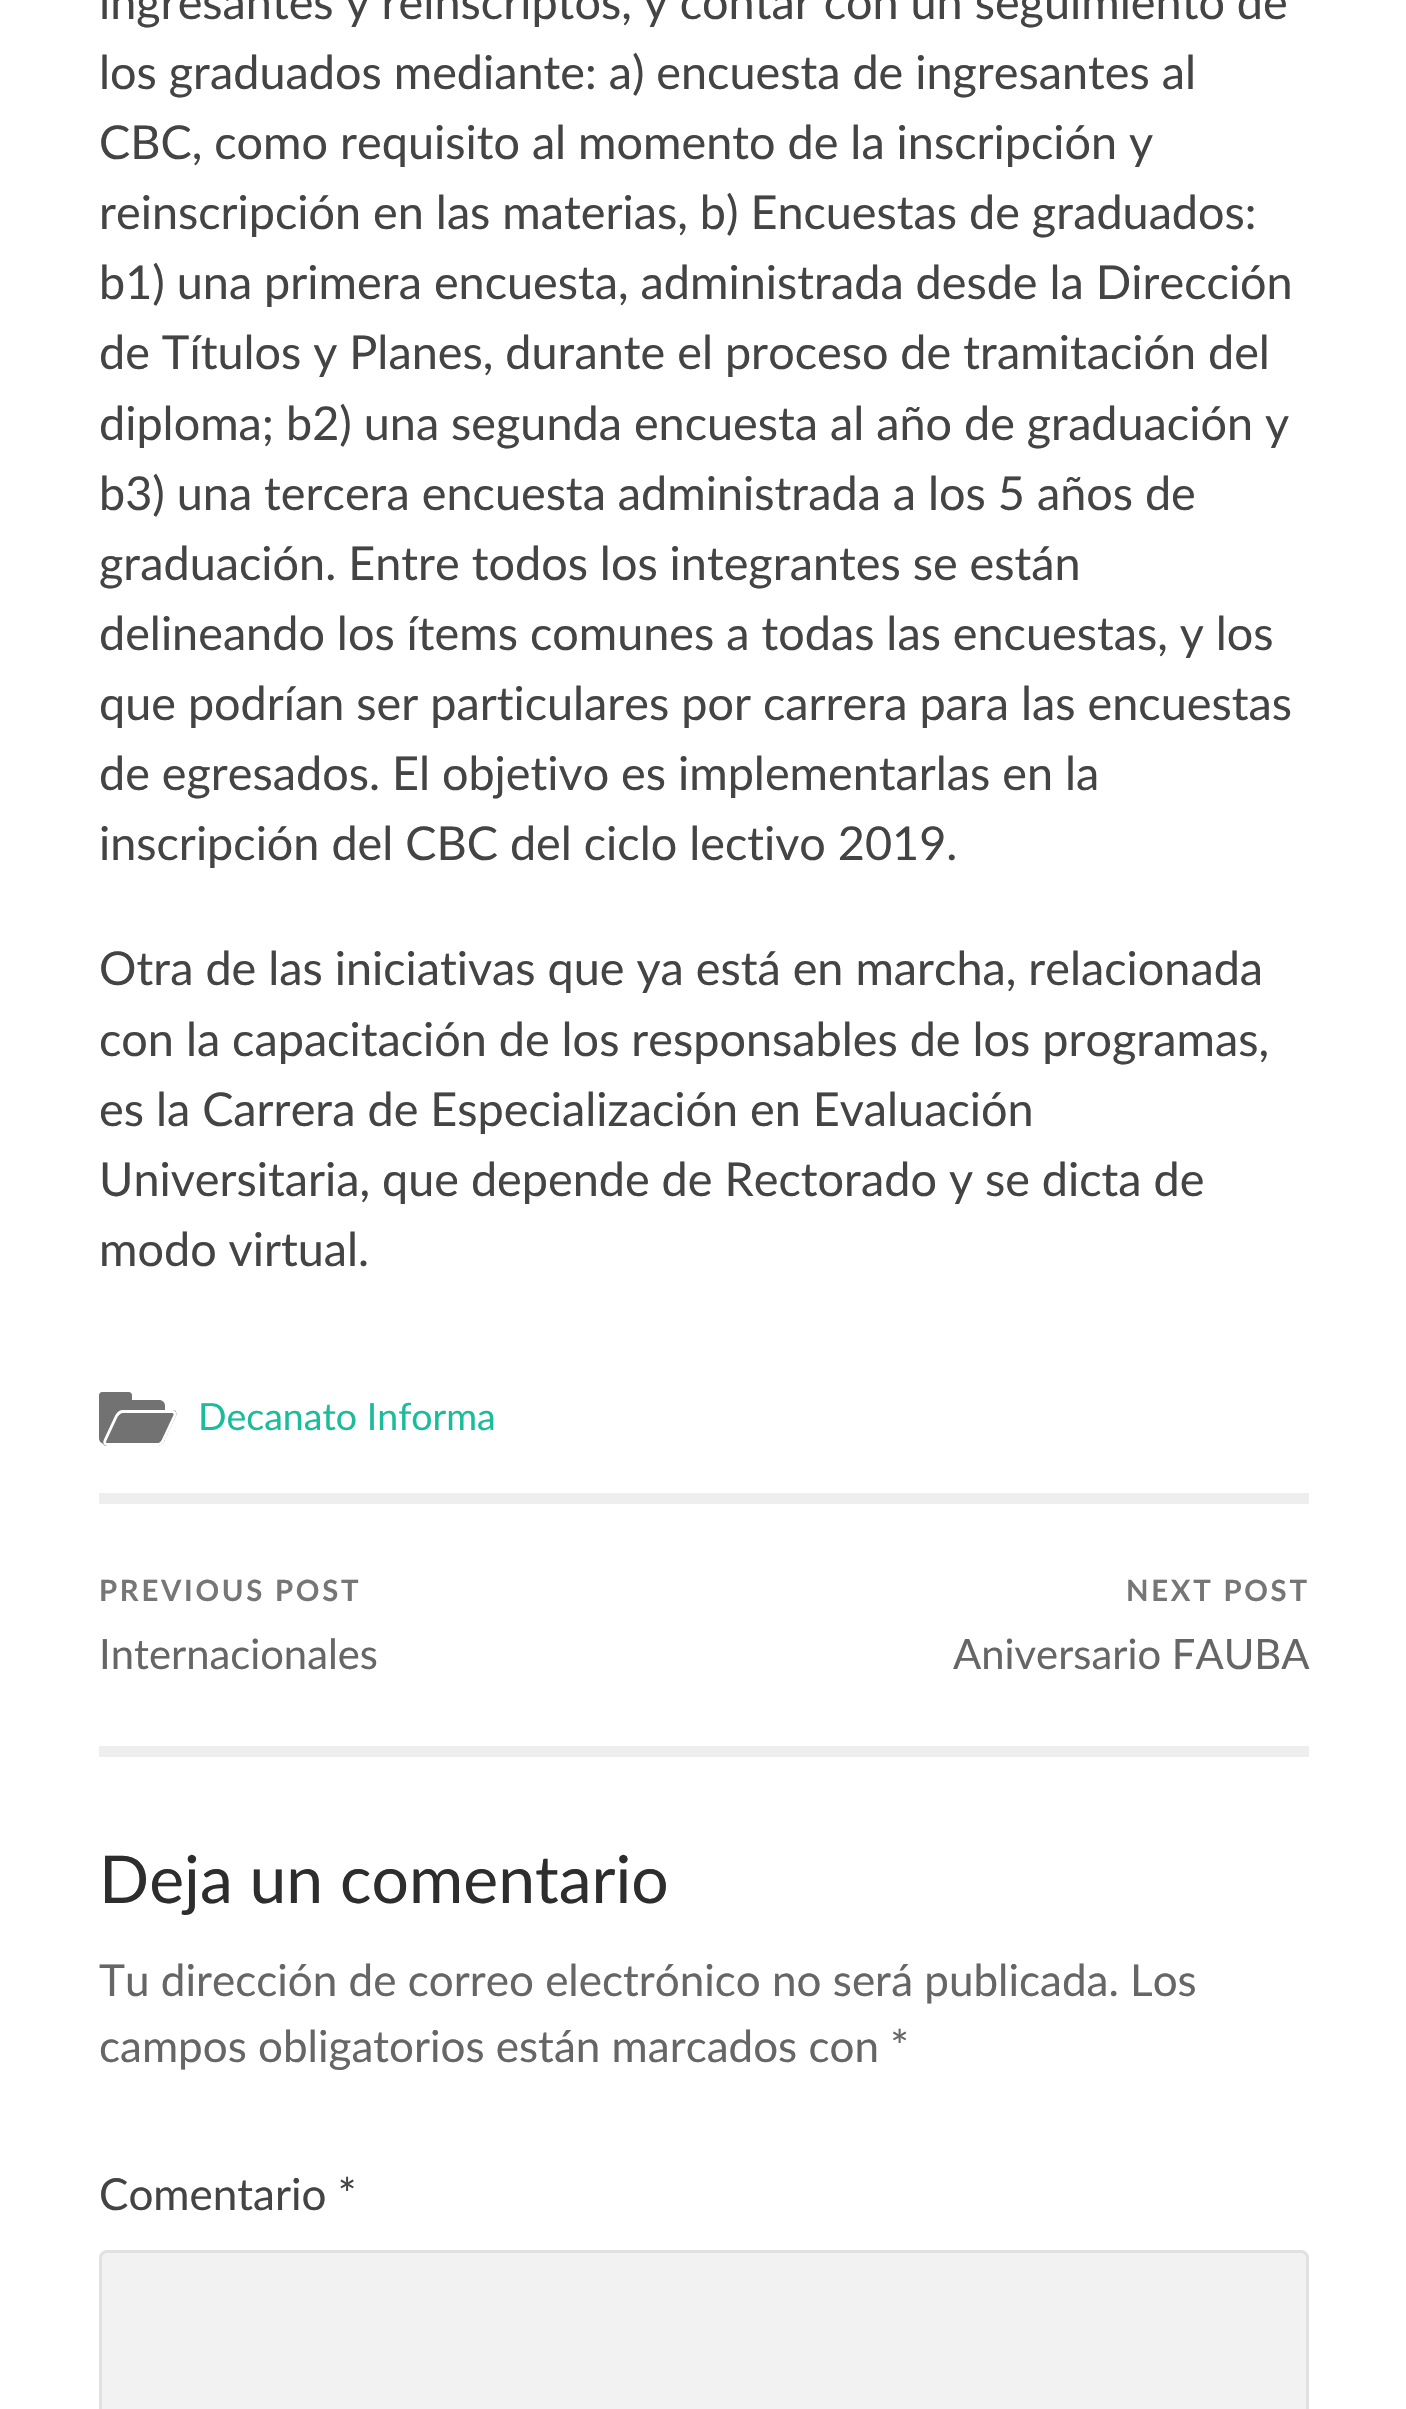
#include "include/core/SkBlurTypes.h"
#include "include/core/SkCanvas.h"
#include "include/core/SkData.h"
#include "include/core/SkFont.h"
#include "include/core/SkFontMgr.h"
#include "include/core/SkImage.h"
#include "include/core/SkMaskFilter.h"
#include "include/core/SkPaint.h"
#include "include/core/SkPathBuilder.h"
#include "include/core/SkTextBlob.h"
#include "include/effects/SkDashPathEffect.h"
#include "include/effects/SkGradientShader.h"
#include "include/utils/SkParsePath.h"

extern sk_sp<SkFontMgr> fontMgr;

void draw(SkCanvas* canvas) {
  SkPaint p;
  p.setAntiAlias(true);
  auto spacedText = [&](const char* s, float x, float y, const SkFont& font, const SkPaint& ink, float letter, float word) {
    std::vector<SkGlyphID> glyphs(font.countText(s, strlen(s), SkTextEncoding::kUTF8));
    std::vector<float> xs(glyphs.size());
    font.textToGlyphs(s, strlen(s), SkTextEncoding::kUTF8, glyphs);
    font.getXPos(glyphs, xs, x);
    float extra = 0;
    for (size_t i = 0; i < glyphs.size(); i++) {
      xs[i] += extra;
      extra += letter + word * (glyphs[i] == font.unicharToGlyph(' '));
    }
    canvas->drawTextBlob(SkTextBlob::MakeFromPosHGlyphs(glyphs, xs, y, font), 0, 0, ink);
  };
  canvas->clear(SK_ColorWHITE);
  p.setColor(SkColorSetRGB(114, 114, 114));
  canvas->drawPath(SkPathBuilder().moveTo(99, 1400).lineTo(159, 1400).cubicTo(162.5f, 1400, 165, 1402.5f, 165, 1406).lineTo(165, 1438).cubicTo(165, 1441.5f, 162.5f, 1444, 159, 1444).lineTo(105, 1444).cubicTo(101.5f, 1444, 99, 1441.5f, 99, 1438).close().detach(), p);
  canvas->drawPath(SkPathBuilder().moveTo(102, 1392).lineTo(129, 1392).cubicTo(130.5f, 1392, 132, 1393.5f, 132, 1395).lineTo(132, 1400).lineTo(99, 1400).lineTo(99, 1395).cubicTo(99, 1393.5f, 100.5f, 1392, 102, 1392).close().detach(), p);
  canvas->drawPath(SkPathBuilder().moveTo(123, 1410).lineTo(173, 1410).cubicTo(176, 1410, 177, 1413, 176, 1416).lineTo(164, 1441).cubicTo(163, 1444, 159, 1446, 156, 1446).lineTo(107, 1446).cubicTo(104, 1446, 102, 1444, 104, 1441).lineTo(115, 1416).cubicTo(117, 1413, 120, 1410, 123, 1410).close().detach(), p);
  p.setStyle(SkPaint::kStroke_Style);
  p.setStrokeWidth(2.8f);
  p.setColor(SK_ColorWHITE);
  canvas->drawPath(SkPathBuilder().moveTo(123, 1411.5f).lineTo(172.5f, 1411.5f).cubicTo(174.5f, 1411.5f, 175.5f, 1413.5f, 174.5f, 1416).lineTo(163, 1440.5f).cubicTo(162, 1443, 159, 1444.5f, 157, 1444.5f).lineTo(107.5f, 1444.5f).cubicTo(105, 1444.5f, 104, 1443, 105, 1440.5f).lineTo(116.5f, 1416).cubicTo(118, 1413.5f, 120.5f, 1411.5f, 123, 1411.5f).close().detach(), p);
  p.setStyle(SkPaint::kFill_Style);
  p.setColor(SkColorSetRGB(238, 238, 238));
  canvas->drawRect(SkRect::MakeLTRB(99, 1493, 1309, 1504), p);
  canvas->drawRect(SkRect::MakeLTRB(99, 1746, 1309, 1757), p);
  p.setColor(SkColorSetRGB(242, 242, 242));
  canvas->drawRoundRect(SkRect::MakeLTRB(100.5f, 2251.5f, 1307.5f, 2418.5f), 6.5f, 6.5f, p);
  p.setStyle(SkPaint::kStroke_Style);
  p.setStrokeWidth(3);
  p.setColor(SkColorSetRGB(225, 225, 227));
  canvas->drawRoundRect(SkRect::MakeLTRB(100.5f, 2251.5f, 1307.5f, 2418.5f), 6.5f, 6.5f, p);
  SkFont font1(fontMgr->matchFamilyStyle("Lato", SkFontStyle::Normal()), 46.75f);
  font1.setSubpixel(true);
  p.setStyle(SkPaint::kFill_Style);
  p.setColor(SkColorSetRGB(68, 68, 68));
  canvas->drawString("ingresantes y reinscriptos, y contar con un seguimiento de", 99, 19, font1, p);
  canvas->drawString("los graduados mediante: a) encuesta de ingresantes al", 99, 89, font1, p);
  canvas->drawString("CBC, como requisito al momento de la inscripción y", 99, 159, font1, p);
  canvas->drawString("reinscripción en las materias, b) Encuestas de graduados:", 99, 229, font1, p);
  canvas->drawString("b1) una primera encuesta, administrada desde la Dirección", 99, 299, font1, p);
  canvas->drawString("de Títulos y Planes, durante el proceso de tramitación del", 99, 369, font1, p);
  canvas->drawString("diploma; b2) una segunda encuesta al año de graduación y", 99, 440, font1, p);
  canvas->drawString("b3) una tercera encuesta administrada a los 5 años de", 99, 510, font1, p);
  canvas->drawString("graduación. Entre todos los integrantes se están", 99, 580, font1, p);
  canvas->drawString("delineando los ítems comunes a todas las encuestas, y los", 99, 650, font1, p);
  canvas->drawString("que podrían ser particulares por carrera para las encuestas", 99, 720, font1, p);
  canvas->drawString("de egresados. El objetivo es implementarlas en la", 99, 790, font1, p);
  canvas->drawString("inscripción del CBC del ciclo lectivo 2019.", 99, 860, font1, p);
  canvas->drawString("Otra de las iniciativas que ya está en marcha, relacionada", 99, 985, font1, p);
  canvas->drawString("con la capacitación de los responsables de los programas,", 99, 1056, font1, p);
  canvas->drawString("es la Carrera de Especialización en Evaluación", 99, 1126, font1, p);
  canvas->drawString("Universitaria, que depende de Rectorado y se dicta de", 99, 1196, font1, p);
  canvas->drawString("modo virtual.", 99, 1266, font1, p);
  SkFont font2(fontMgr->matchFamilyStyle("Lato", SkFontStyle::Normal()), 37.5f);
  font2.setSubpixel(true);
  p.setColor(SkColorSetRGB(26, 188, 156));
  canvas->drawString("Decanato Informa", 198, 1430, font2, p);
  SkFont font3(fontMgr->matchFamilyStyle("Lato", SkFontStyle::Bold()), 29.25f);
  font3.setSubpixel(true);
  p.setColor(SkColorSetRGB(118, 118, 118));
  spacedText("PREVIOUS POST", 99, 1601, font3, p, 2.75f, 0);
  SkFont font4(fontMgr->matchFamilyStyle("Lato", SkFontStyle::Normal()), 41.75f);
  font4.setSubpixel(true);
  p.setColor(SkColorSetRGB(102, 102, 102));
  canvas->drawString("Internacionales", 99, 1669, font4, p);
  p.setColor(SkColorSetRGB(118, 118, 118));
  spacedText("NEXT POST", 1126, 1601, font3, p, 2.75f, 0);
  p.setColor(SkColorSetRGB(102, 102, 102));
  canvas->drawString("Aniversario FAUBA", 953, 1669, font4, p);
  SkFont font5(fontMgr->matchFamilyStyle("Lato", SkFontStyle::Normal()), 66);
  font5.setSubpixel(true);
  p.setColor(SkColorSetRGB(45, 45, 45));
  canvas->drawString("Deja un comentario", 99, 1903, font5, p);
  SkFont font6(fontMgr->matchFamilyStyle("Lato", SkFontStyle::Normal()), 44);
  font6.setSubpixel(true);
  p.setColor(SkColorSetRGB(102, 102, 102));
  canvas->drawString("Tu dirección de correo electrónico no será publicada. Los", 99, 1996, font6, p);
  canvas->drawString("campos obligatorios están marcados con *", 99, 2062, font6, p);
  p.setColor(SkColorSetRGB(68, 68, 68));
  canvas->drawString("Comentario *", 99, 2210, font6, p);
}
